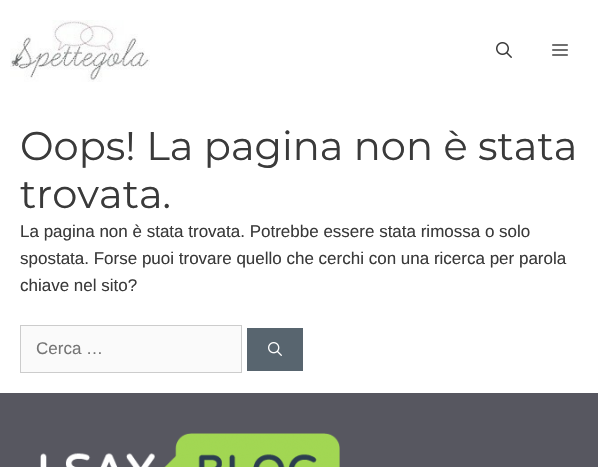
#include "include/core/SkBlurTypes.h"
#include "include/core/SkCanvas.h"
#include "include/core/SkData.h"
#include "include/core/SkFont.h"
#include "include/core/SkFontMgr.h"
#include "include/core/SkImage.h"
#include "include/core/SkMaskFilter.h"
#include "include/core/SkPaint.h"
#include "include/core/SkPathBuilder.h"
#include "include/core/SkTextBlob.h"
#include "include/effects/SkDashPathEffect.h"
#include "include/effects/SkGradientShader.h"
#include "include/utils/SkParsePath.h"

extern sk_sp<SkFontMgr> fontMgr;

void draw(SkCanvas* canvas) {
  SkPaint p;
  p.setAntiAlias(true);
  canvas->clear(SK_ColorWHITE);
  canvas->drawImageRect(SkImages::DeferredFromEncodedData(SkData::MakeFromFileName("images/1.png")), SkRect::MakeLTRB(10, 20, 150, 82), SkSamplingOptions());
  canvas->drawImageRect(SkImages::DeferredFromEncodedData(SkData::MakeFromFileName("images/2.png")), SkRect::MakeLTRB(496, 42, 512, 58), SkSamplingOptions());
  canvas->drawImageRect(SkImages::DeferredFromEncodedData(SkData::MakeFromFileName("images/3.png")), SkRect::MakeLTRB(552, 44, 568, 56), SkSamplingOptions());
  p.setColor(SkColorSetRGB(250, 250, 250));
  canvas->drawRect(SkRect::MakeLTRB(20.5f, 325.5f, 241.5f, 372.5f), p);
  p.setStyle(SkPaint::kStroke_Style);
  p.setStrokeWidth(1);
  p.setColor(SkColorSetRGB(204, 204, 204));
  canvas->drawRect(SkRect::MakeLTRB(20.5f, 325.5f, 241.5f, 372.5f), p);
  p.setStyle(SkPaint::kFill_Style);
  p.setColor(SkColorSetRGB(88, 101, 111));
  canvas->drawRect(SkRect::MakeLTRB(247, 328, 303, 371), p);
  canvas->drawImageRect(SkImages::DeferredFromEncodedData(SkData::MakeFromFileName("images/4.png")), SkRect::MakeLTRB(268, 342, 282, 356), SkSamplingOptions());
  p.setColor(SkColorSetRGB(87, 87, 96));
  canvas->drawRect(SkRect::MakeLTRB(0, 393, 598, 467), p);
  canvas->drawImageRect(SkImages::DeferredFromEncodedData(SkData::MakeFromFileName("images/5.png")), SkRect::MakeLTRB(40, 433, 340, 467), SkSamplingOptions());
  SkFont font1(fontMgr->matchFamilyStyle("Montserrat", SkFontStyle::Normal()), 40);
  font1.setSubpixel(true);
  p.setColor(SkColorSetRGB(58, 58, 58));
  canvas->drawString("Oops! La pagina non è stata", 20, 160, font1, p);
  canvas->drawString("trovata.", 20, 208, font1, p);
  SkFont font2(fontMgr->matchFamilyStyle("Liberation Sans", SkFontStyle::Normal()), 17);
  font2.setSubpixel(true);
  canvas->drawString("La pagina non è stata trovata. Potrebbe essere stata rimossa o solo", 20, 237, font2, p);
  canvas->drawString("spostata. Forse puoi trovare quello che cerchi con una ricerca per parola", 20, 264, font2, p);
  canvas->drawString("chiave nel sito?", 20, 291, font2, p);
  p.setColor(SkColorSetRGB(117, 117, 117));
  canvas->drawString("Cerca …", 36, 354, font2, p);
}
